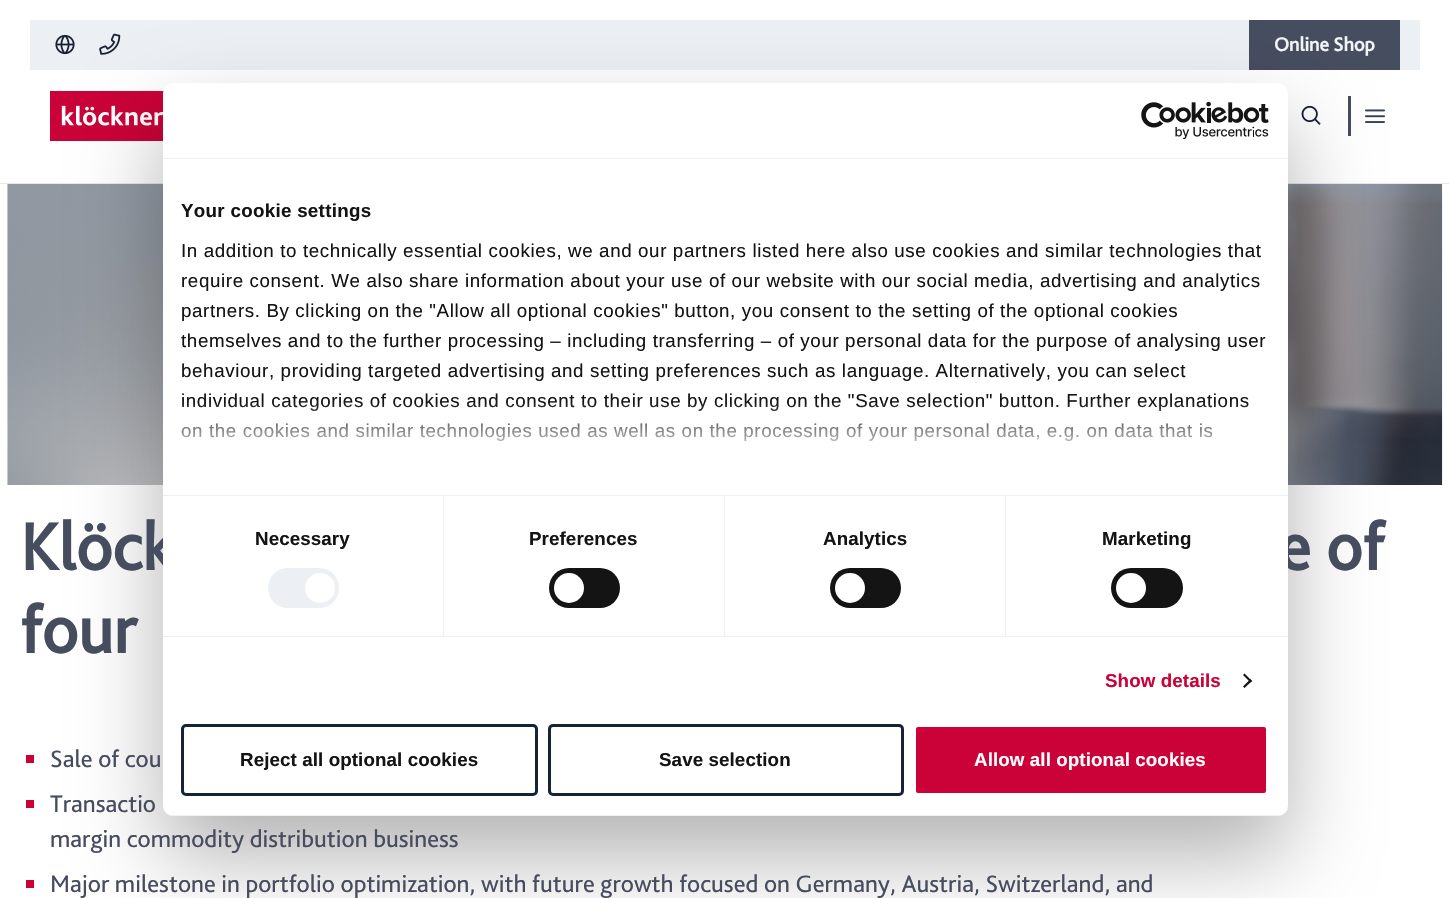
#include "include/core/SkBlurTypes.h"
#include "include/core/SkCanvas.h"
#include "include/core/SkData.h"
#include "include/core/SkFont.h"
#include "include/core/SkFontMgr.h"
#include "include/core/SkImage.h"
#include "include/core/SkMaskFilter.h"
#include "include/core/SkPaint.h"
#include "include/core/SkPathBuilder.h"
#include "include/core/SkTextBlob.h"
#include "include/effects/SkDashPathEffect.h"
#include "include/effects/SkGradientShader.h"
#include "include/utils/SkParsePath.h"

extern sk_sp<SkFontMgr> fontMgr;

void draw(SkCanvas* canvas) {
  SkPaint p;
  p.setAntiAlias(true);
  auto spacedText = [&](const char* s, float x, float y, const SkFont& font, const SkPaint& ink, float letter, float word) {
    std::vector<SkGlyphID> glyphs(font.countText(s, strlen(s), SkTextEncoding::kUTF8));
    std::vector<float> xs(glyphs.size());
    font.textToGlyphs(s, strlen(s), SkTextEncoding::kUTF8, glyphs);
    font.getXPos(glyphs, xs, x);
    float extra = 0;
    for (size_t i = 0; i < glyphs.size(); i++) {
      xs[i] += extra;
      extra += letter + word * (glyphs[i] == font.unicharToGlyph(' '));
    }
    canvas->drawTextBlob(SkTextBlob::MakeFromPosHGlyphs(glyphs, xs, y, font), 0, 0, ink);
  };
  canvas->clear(SK_ColorWHITE);
  p.setColor(SkColorSetRGB(229, 231, 235));
  canvas->drawRect(SkRect::MakeLTRB(0, 183, 1449, 184), p);
  p.setColor(SkColorSetRGB(236, 239, 244));
  canvas->drawRect(SkRect::MakeLTRB(30, 20, 1420, 70), p);
  canvas->drawImageRect(SkImages::DeferredFromEncodedData(SkData::MakeFromFileName("images/1.png")), SkRect::MakeLTRB(55, 34, 75, 55), SkSamplingOptions());
  canvas->drawImageRect(SkImages::DeferredFromEncodedData(SkData::MakeFromFileName("images/2.png")), SkRect::MakeLTRB(99, 33, 121, 55), SkSamplingOptions());
  p.setColor(SkColorSetRGB(70, 77, 95));
  canvas->drawRect(SkRect::MakeLTRB(1249, 20, 1400, 70), p);
  canvas->drawImageRect(SkImages::DeferredFromEncodedData(SkData::MakeFromFileName("images/3.png")), SkRect::MakeLTRB(50, 91, 164, 141), SkSamplingOptions());
  canvas->drawImageRect(SkImages::DeferredFromEncodedData(SkData::MakeFromFileName("images/4.png")), SkRect::MakeLTRB(1301, 105, 1321, 125), SkSamplingOptions());
  canvas->drawRect(SkRect::MakeLTRB(1348, 96, 1351, 136), p);
  canvas->drawImageRect(SkImages::DeferredFromEncodedData(SkData::MakeFromFileName("images/5.png")), SkRect::MakeLTRB(1365, 109, 1385, 123), SkSamplingOptions());
  canvas->drawImageRect(SkImages::DeferredFromEncodedData(SkData::MakeFromFileName("images/6.png")), SkRect::MakeLTRB(7, 184, 1443, 485), SkSamplingOptions());
  p.setColor(SkColorSetRGB(202, 2, 55));
  canvas->drawRect(SkRect::MakeLTRB(26, 755, 34, 763), p);
  canvas->drawRect(SkRect::MakeLTRB(26, 800, 34, 808), p);
  canvas->drawRect(SkRect::MakeLTRB(26, 880, 34, 888), p);
  p.setColor(SkColorSetARGB(77, 0, 0, 0));
  p.setMaskFilter(SkMaskFilter::MakeBlur(kNormal_SkBlurStyle, 42.5f));
  canvas->drawRoundRect(SkRect::MakeLTRB(163, 123, 1288, 856), 10, 10, p);
  p.setMaskFilter(nullptr);
  SkFont font1(fontMgr->matchFamilyStyle("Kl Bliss", SkFontStyle::Bold()), 20);
  font1.setSubpixel(true);
  p.setColor(SkColorSetRGB(243, 244, 246));
  canvas->drawString("Online Shop", 1274, 51, font1, p);
  SkFont font2(fontMgr->matchFamilyStyle("Kl Bliss", SkFontStyle::Bold()), 69);
  font2.setSubpixel(true);
  p.setColor(SkColorSetRGB(70, 77, 95));
  canvas->drawString("Klöck", 20, 570, font2, p);
  canvas->drawString("e of", 1278, 570, font2, p);
  canvas->drawString("four", 20, 653, font2, p);
  SkFont font3(fontMgr->matchFamilyStyle("Kl Bliss", SkFontStyle::Normal()), 25);
  font3.setSubpixel(true);
  canvas->drawString("Sale of cou", 50, 767, font3, p);
  canvas->drawString("Transactio", 50, 812, font3, p);
  canvas->drawString("margin commodity distribution business", 50, 847, font3, p);
  canvas->drawString("Major milestone in portfolio optimization, with future growth focused on Germany, Austria, Switzerland, and", 50, 892, font3, p);
  p.setColor(SK_ColorWHITE);
  canvas->drawRoundRect(SkRect::MakeLTRB(163, 83, 1288, 816), 10, 10, p);
  p.setColor(SkColorSetRGB(236, 239, 244));
  canvas->drawRect(SkRect::MakeLTRB(163, 158, 1288, 159), p);
  canvas->drawImageRect(SkImages::DeferredFromEncodedData(SkData::MakeFromFileName("images/7.png")), SkRect::MakeLTRB(1141, 101, 1269, 139), SkSamplingOptions());
  canvas->drawRect(SkRect::MakeLTRB(163, 495, 1288, 496), p);
  SkFont font4(fontMgr->matchFamilyStyle("Liberation Sans", SkFontStyle::Bold()), 18.75f);
  font4.setSubpixel(true);
  p.setColor(SkColorSetRGB(20, 20, 20));
  spacedText("Your cookie settings", 181, 217, font4, p, 0.3f, 0);
  SkFont font5(fontMgr->matchFamilyStyle("Liberation Sans", SkFontStyle::Normal()), 18.75f);
  font5.setSubpixel(true);
  spacedText("In addition to technically essential cookies, we and our partners listed here also use cookies and similar technologies that", 181, 257, font5, p, 0.62f, 0);
  spacedText("require consent. We also share information about your use of our website with our social media, advertising and analytics", 181, 287, font5, p, 0.62f, 0);
  spacedText("partners. By clicking on the \"Allow all optional cookies\" button, you consent to the setting of the optional cookies", 181, 317, font5, p, 0.62f, 0);
  spacedText("themselves and to the further processing – including transferring – of your personal data for the purpose of analysing user", 181, 347, font5, p, 0.62f, 0);
  spacedText("behaviour, providing targeted advertising and setting preferences such as language. Alternatively, you can select", 181, 377, font5, p, 0.62f, 0);
  spacedText("individual categories of cookies and consent to their use by clicking on the \"Save selection\" button. Further explanations", 181, 407, font5, p, 0.62f, 0);
  spacedText("on the cookies and similar technologies used as well as on the processing of your personal data, e.g. on data that is", 181, 437, font5, p, 0.62f, 0);
  {
    const SkColor colors[] = {SK_ColorWHITE, SkColorSetARGB(204, 255, 255, 255), SkColorSetARGB(0, 255, 255, 255)};
    const float stops[] = {0, 0.5f, 1};
    const SkPoint ends[] = {{717, 495}, {717, 402}};
    p.setShader(SkGradientShader::MakeLinear(ends, colors, stops, 3, SkTileMode::kClamp));
    p.setAlpha(255);
  }
  canvas->drawRect(SkRect::MakeLTRB(182, 403, 1249, 441), p);
  p.setShader(nullptr);
  p.setColor(SkColorSetRGB(236, 239, 244));
  canvas->drawRect(SkRect::MakeLTRB(163, 636, 1288, 637), p);
  canvas->drawRect(SkRect::MakeLTRB(443, 496, 444, 636), p);
  p.setColor(SkColorSetRGB(20, 20, 20));
  spacedText("Necessary", 255, 545, font4, p, 0.1f, 0);
  p.setColor(SkColorSetRGB(236, 239, 244));
  canvas->drawRoundRect(SkRect::MakeLTRB(268, 568, 339, 608), 20, 20, p);
  p.setColor(SK_ColorWHITE);
  canvas->drawCircle(320, 588, 15, p);
  p.setColor(SkColorSetRGB(236, 239, 244));
  canvas->drawRect(SkRect::MakeLTRB(724, 496, 725, 636), p);
  p.setColor(SkColorSetRGB(20, 20, 20));
  spacedText("Preferences", 529, 545, font4, p, 0.1f, 0);
  canvas->drawRoundRect(SkRect::MakeLTRB(549, 568, 620, 608), 20, 20, p);
  p.setColor(SK_ColorWHITE);
  canvas->drawCircle(569, 588, 15, p);
  p.setColor(SkColorSetRGB(236, 239, 244));
  canvas->drawRect(SkRect::MakeLTRB(1005, 496, 1006, 636), p);
  p.setColor(SkColorSetRGB(20, 20, 20));
  spacedText("Analytics", 823, 545, font4, p, 0.1f, 0);
  canvas->drawRoundRect(SkRect::MakeLTRB(830, 568, 901, 608), 20, 20, p);
  p.setColor(SK_ColorWHITE);
  canvas->drawCircle(850, 588, 15, p);
  p.setColor(SkColorSetRGB(20, 20, 20));
  spacedText("Marketing", 1102, 545, font4, p, 0.1f, 0);
  canvas->drawRoundRect(SkRect::MakeLTRB(1111, 568, 1183, 608), 20, 20, p);
  p.setColor(SK_ColorWHITE);
  canvas->drawCircle(1131, 588, 15, p);
  p.setColor(SkColorSetRGB(202, 2, 55));
  spacedText("Show details", 1105, 687, font4, p, 0.1f, 0);
  p.setColor(SkColorSetRGB(20, 20, 20));
  canvas->drawPath(SkPathBuilder().moveTo(1244.5f, 673.5f).lineTo(1252, 681).lineTo(1250.5f, 682.5f).lineTo(1243, 675).close().detach(), p);
  canvas->drawPath(SkPathBuilder().moveTo(1250.5f, 679).lineTo(1252, 681).lineTo(1244.5f, 688).lineTo(1243, 686.5f).close().detach(), p);
  canvas->save();
  canvas->clipPath(SkPathBuilder().moveTo(173, 83).lineTo(1278, 83).cubicTo(1283.5f, 83, 1288, 87.5f, 1288, 93).lineTo(1288, 806).cubicTo(1288, 811.5f, 1283.5f, 816, 1278, 816).lineTo(173, 816).cubicTo(167.5f, 816, 163, 811.5f, 163, 806).lineTo(163, 93).cubicTo(163, 87.5f, 167.5f, 83, 173, 83).close().detach(), true);
  p.setColor(SkColorSetRGB(236, 239, 244));
  canvas->drawRect(SkRect::MakeLTRB(163, 815, 1288, 816), p);
  canvas->restore();
  p.setStyle(SkPaint::kStroke_Style);
  p.setStrokeWidth(3);
  p.setColor(SkColorSetRGB(25, 33, 52));
  canvas->drawRoundRect(SkRect::MakeLTRB(182.5f, 725.5f, 536.5f, 794.5f), 3.5f, 3.5f, p);
  p.setStyle(SkPaint::kFill_Style);
  p.setColor(SkColorSetRGB(20, 20, 20));
  spacedText("Reject all optional cookies", 240, 766, font4, p, 0.1f, 0);
  p.setStyle(SkPaint::kStroke_Style);
  p.setColor(SkColorSetRGB(25, 33, 52));
  canvas->drawRoundRect(SkRect::MakeLTRB(549.5f, 725.5f, 902.5f, 794.5f), 3.5f, 3.5f, p);
  p.setStyle(SkPaint::kFill_Style);
  p.setColor(SkColorSetRGB(20, 20, 20));
  spacedText("Save selection", 659, 766, font4, p, 0.1f, 0);
  p.setColor(SkColorSetRGB(202, 2, 55));
  canvas->drawRoundRect(SkRect::MakeLTRB(914.5f, 725.5f, 1267.5f, 794.5f), 3.5f, 3.5f, p);
  p.setStyle(SkPaint::kStroke_Style);
  p.setColor(SK_ColorWHITE);
  canvas->drawRoundRect(SkRect::MakeLTRB(914.5f, 725.5f, 1267.5f, 794.5f), 3.5f, 3.5f, p);
  p.setStyle(SkPaint::kFill_Style);
  spacedText("Allow all optional cookies", 974, 766, font4, p, 0.1f, 0);
}
